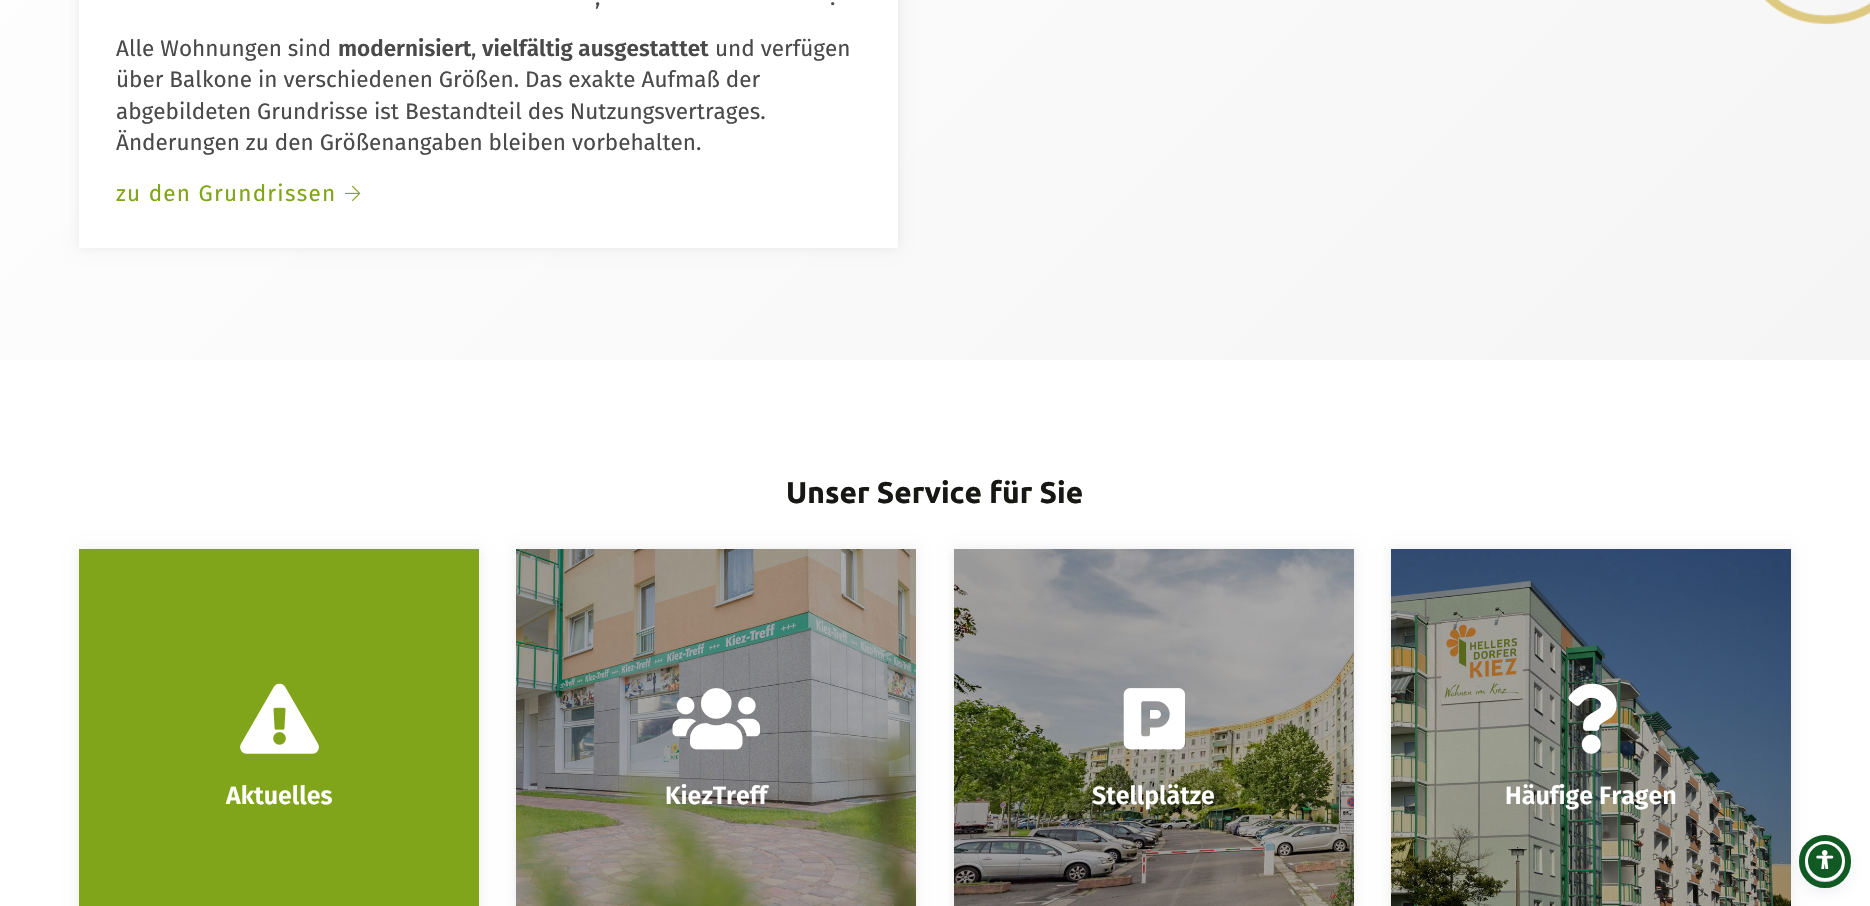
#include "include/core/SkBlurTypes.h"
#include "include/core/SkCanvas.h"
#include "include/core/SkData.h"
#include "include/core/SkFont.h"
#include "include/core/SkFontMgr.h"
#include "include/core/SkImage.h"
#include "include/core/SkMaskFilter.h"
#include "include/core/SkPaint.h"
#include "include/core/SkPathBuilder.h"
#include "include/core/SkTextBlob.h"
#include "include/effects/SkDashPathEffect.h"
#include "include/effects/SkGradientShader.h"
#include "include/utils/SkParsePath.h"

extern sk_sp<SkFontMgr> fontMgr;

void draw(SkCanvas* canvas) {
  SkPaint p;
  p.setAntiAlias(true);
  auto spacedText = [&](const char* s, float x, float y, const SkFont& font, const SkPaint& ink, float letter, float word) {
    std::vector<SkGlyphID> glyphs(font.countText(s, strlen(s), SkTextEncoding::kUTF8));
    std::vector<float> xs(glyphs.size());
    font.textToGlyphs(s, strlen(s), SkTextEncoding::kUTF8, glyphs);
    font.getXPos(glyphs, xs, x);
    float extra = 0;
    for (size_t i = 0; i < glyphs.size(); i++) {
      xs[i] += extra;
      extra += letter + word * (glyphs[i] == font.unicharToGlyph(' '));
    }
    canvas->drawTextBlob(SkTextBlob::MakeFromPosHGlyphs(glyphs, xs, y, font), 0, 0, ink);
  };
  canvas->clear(SK_ColorWHITE);
  {
    const SkColor colors[] = {SK_ColorWHITE, SkColorSetRGB(245, 245, 245)};
    const float stops[] = {0, 1};
    const SkPoint ends[] = {{288, -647}, {1583, 648}};
    p.setShader(SkGradientShader::MakeLinear(ends, colors, stops, 2, SkTileMode::kClamp));
    p.setAlpha(255);
  }
  canvas->drawRect(SkRect::MakeLTRB(0, 0, 1870, 360), p);
  p.setShader(nullptr);
  p.setColor(SkColorSetARGB(20, 0, 0, 0));
  p.setMaskFilter(SkMaskFilter::MakeBlur(kNormal_SkBlurStyle, 6));
  canvas->drawRect(SkRect::MakeLTRB(79, -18, 898, 248), p);
  p.setMaskFilter(nullptr);
  p.setColor(SK_ColorWHITE);
  canvas->drawRect(SkRect::MakeLTRB(79, 0, 898, 248), p);
  canvas->drawImageRect(SkImages::DeferredFromEncodedData(SkData::MakeFromFileName("images/1.png")), SkRect::MakeLTRB(345, 185, 361, 201), SkSamplingOptions());
  canvas->drawImageRect(SkImages::DeferredFromEncodedData(SkData::MakeFromFileName("images/2.png")), SkRect::MakeLTRB(1764, 0, 1870, 25), SkSamplingOptions());
  p.setColor(SkColorSetARGB(20, 0, 0, 0));
  p.setMaskFilter(SkMaskFilter::MakeBlur(kNormal_SkBlurStyle, 6));
  canvas->drawRect(SkRect::MakeLTRB(79, 549, 479, 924), p);
  p.setMaskFilter(nullptr);
  p.setColor(SkColorSetRGB(128, 165, 27));
  canvas->drawRect(SkRect::MakeLTRB(79, 549, 479, 906), p);
  canvas->drawImageRect(SkImages::DeferredFromEncodedData(SkData::MakeFromFileName("images/3.png")), SkRect::MakeLTRB(240, 683, 319, 754), SkSamplingOptions());
  p.setColor(SkColorSetARGB(20, 0, 0, 0));
  p.setMaskFilter(SkMaskFilter::MakeBlur(kNormal_SkBlurStyle, 6));
  canvas->drawRect(SkRect::MakeLTRB(516, 549, 916, 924), p);
  p.setMaskFilter(nullptr);
  canvas->drawImageRect(SkImages::DeferredFromEncodedData(SkData::MakeFromFileName("images/4.png")), SkRect::MakeLTRB(516, 549, 916, 906), SkSamplingOptions());
  canvas->drawImageRect(SkImages::DeferredFromEncodedData(SkData::MakeFromFileName("images/5.png")), SkRect::MakeLTRB(672, 688, 760, 750), SkSamplingOptions());
  p.setMaskFilter(SkMaskFilter::MakeBlur(kNormal_SkBlurStyle, 6));
  canvas->drawRect(SkRect::MakeLTRB(954, 549, 1354, 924), p);
  p.setMaskFilter(nullptr);
  canvas->drawImageRect(SkImages::DeferredFromEncodedData(SkData::MakeFromFileName("images/6.png")), SkRect::MakeLTRB(954, 549, 1354, 906), SkSamplingOptions());
  canvas->drawImageRect(SkImages::DeferredFromEncodedData(SkData::MakeFromFileName("images/7.png")), SkRect::MakeLTRB(1123, 688, 1185, 750), SkSamplingOptions());
  p.setMaskFilter(SkMaskFilter::MakeBlur(kNormal_SkBlurStyle, 6));
  canvas->drawRect(SkRect::MakeLTRB(1391, 549, 1791, 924), p);
  p.setMaskFilter(nullptr);
  canvas->drawImageRect(SkImages::DeferredFromEncodedData(SkData::MakeFromFileName("images/8.png")), SkRect::MakeLTRB(1391, 549, 1791, 906), SkSamplingOptions());
  canvas->drawImageRect(SkImages::DeferredFromEncodedData(SkData::MakeFromFileName("images/9.png")), SkRect::MakeLTRB(1568, 683, 1617, 754), SkSamplingOptions());
  p.setColor(SkColorSetARGB(51, 93, 100, 148));
  p.setMaskFilter(SkMaskFilter::MakeBlur(kNormal_SkBlurStyle, 2.5f));
  canvas->drawRoundRect(SkRect::MakeLTRB(1805, 844, 1845, 884), 20, 20, p);
  p.setMaskFilter(nullptr);
  p.setColor(SkColorSetARGB(38, 37, 44, 97));
  p.setMaskFilter(SkMaskFilter::MakeBlur(kNormal_SkBlurStyle, 9.5f));
  canvas->drawRoundRect(SkRect::MakeLTRB(1805, 848, 1845, 888), 20, 20, p);
  p.setMaskFilter(nullptr);
  p.setColor(SkColorSetRGB(17, 90, 35));
  canvas->drawCircle(1825, 861, 18.5f, p);
  p.setStyle(SkPaint::kStroke_Style);
  p.setStrokeWidth(3);
  p.setColor(SK_ColorWHITE);
  canvas->drawCircle(1825, 861, 18.5f, p);
  p.setStrokeWidth(6);
  p.setColor(SkColorSetRGB(17, 90, 35));
  canvas->drawRoundRect(SkRect::MakeLTRB(1802, 838, 1848, 885), 23, 23, p);
  canvas->drawImageRect(SkImages::DeferredFromEncodedData(SkData::MakeFromFileName("images/10.png")), SkRect::MakeLTRB(1816, 850, 1834, 869), SkSamplingOptions());
  SkFont font1(fontMgr->matchFamilyStyle("Fira Sans", SkFontStyle::Normal()), 22.5f);
  font1.setSubpixel(true);
  p.setStyle(SkPaint::kFill_Style);
  p.setColor(SkColorSetRGB(74, 74, 74));
  canvas->drawString(",", 595, 5, font1, p);
  canvas->drawString(".", 830, 5, font1, p);
  canvas->drawString("Alle Wohnungen sind", 116, 56, font1, p);
  SkFont font2(fontMgr->matchFamilyStyle("Fira Sans", SkFontStyle(600, SkFontStyle::kNormal_Width, SkFontStyle::kUpright_Slant)), 22.5f);
  font2.setSubpixel(true);
  canvas->drawString("modernisiert", 338, 56, font2, p);
  canvas->drawString(",", 471, 56, font1, p);
  canvas->drawString("vielfältig ausgestattet", 482, 56, font2, p);
  canvas->drawString("und verfügen", 715, 56, font1, p);
  canvas->drawString("über Balkone in verschiedenen Größen. Das exakte Aufmaß der", 116, 87, font1, p);
  canvas->drawString("abgebildeten Grundrisse ist Bestandteil des Nutzungsvertrages.", 116, 119, font1, p);
  canvas->drawString("Änderungen zu den Größenangaben bleiben vorbehalten.", 116, 150, font1, p);
  p.setColor(SkColorSetRGB(128, 165, 27));
  spacedText("zu den Grundrissen", 116, 201, font1, p, 1.25f, 0);
  SkFont font3(fontMgr->matchFamilyStyle("Ubuntu", SkFontStyle::Bold()), 30);
  font3.setSubpixel(true);
  p.setColor(SkColorSetRGB(23, 24, 20));
  canvas->drawString("Unser Service für Sie", 786, 503, font3, p);
  SkFont font4(fontMgr->matchFamilyStyle("Fira Sans", SkFontStyle(600, SkFontStyle::kNormal_Width, SkFontStyle::kUpright_Slant)), 25);
  font4.setSubpixel(true);
  p.setColor(SK_ColorWHITE);
  canvas->drawString("Aktuelles", 226, 804, font4, p);
  canvas->drawString("KiezTreff", 665, 804, font4, p);
  canvas->drawString("Stellplätze", 1092, 804, font4, p);
  canvas->drawString("Häufige Fragen", 1505, 804, font4, p);
}
